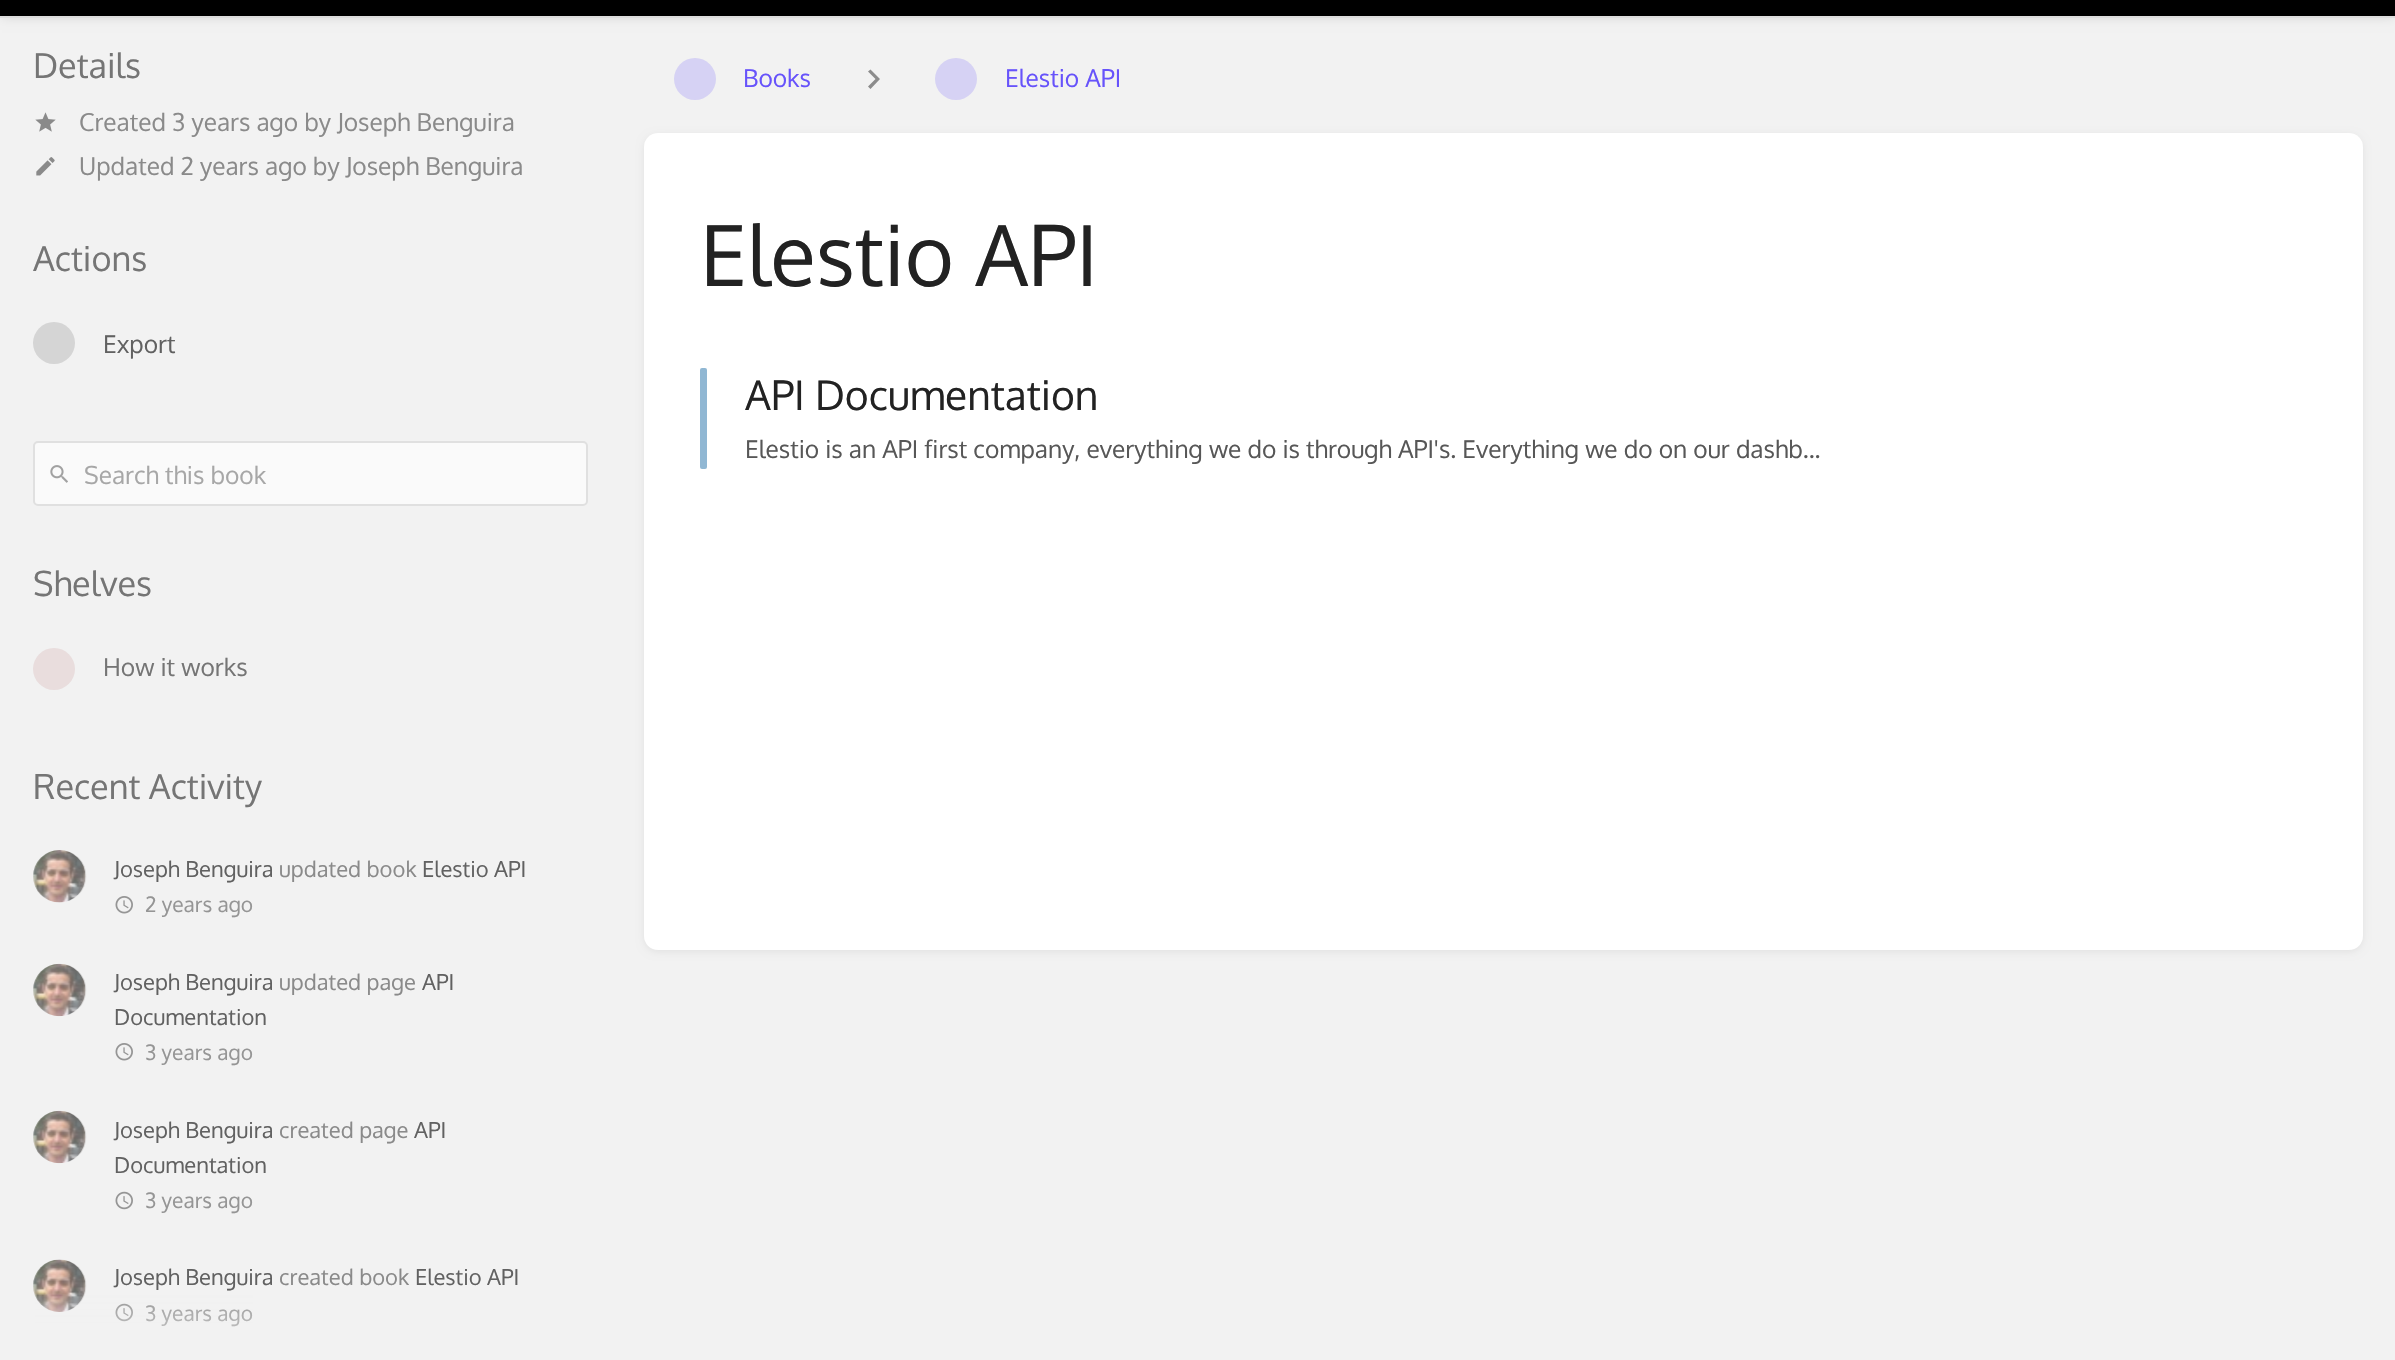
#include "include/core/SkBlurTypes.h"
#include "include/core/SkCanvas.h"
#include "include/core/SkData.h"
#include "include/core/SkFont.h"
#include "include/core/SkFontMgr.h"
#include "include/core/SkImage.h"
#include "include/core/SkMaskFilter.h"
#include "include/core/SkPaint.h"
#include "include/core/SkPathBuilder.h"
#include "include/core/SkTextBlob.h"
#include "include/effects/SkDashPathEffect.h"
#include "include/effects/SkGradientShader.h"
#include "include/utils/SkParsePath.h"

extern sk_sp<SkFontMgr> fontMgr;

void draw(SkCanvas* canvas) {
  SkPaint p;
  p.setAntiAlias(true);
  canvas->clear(SkColorSetRGB(242, 242, 242));
  p.setColor(SkColorSetARGB(26, 0, 0, 0));
  p.setMaskFilter(SkMaskFilter::MakeBlur(kNormal_SkBlurStyle, 5));
  canvas->drawRect(SkRect::MakeLTRB(2, -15, 2394, 18), p);
  p.setMaskFilter(nullptr);
  p.setColor(SK_ColorBLACK);
  canvas->drawRect(SkRect::MakeLTRB(0, 0, 2395, 16), p);
  p.setColor(SkColorSetRGB(221, 221, 221));
  canvas->drawRect(SkRect::MakeLTRB(0, 16, 2395, 18), p);
  canvas->drawImageRect(SkImages::DeferredFromEncodedData(SkData::MakeFromFileName("images/1.png")), SkRect::MakeLTRB(35, 112, 56, 132), SkSamplingOptions());
  canvas->drawImageRect(SkImages::DeferredFromEncodedData(SkData::MakeFromFileName("images/2.png")), SkRect::MakeLTRB(36, 157, 55, 176), SkSamplingOptions());
  p.setColor(SkColorSetRGB(213, 213, 213));
  canvas->drawCircle(54, 343, 21, p);
  p.setColor(SkColorSetRGB(250, 250, 250));
  canvas->drawRoundRect(SkRect::MakeLTRB(34, 442, 587, 505), 4, 4, p);
  p.setStyle(SkPaint::kStroke_Style);
  p.setStrokeWidth(2);
  p.setColor(SkColorSetRGB(224, 224, 224));
  canvas->drawRoundRect(SkRect::MakeLTRB(34, 442, 587, 505), 4, 4, p);
  canvas->drawImageRect(SkImages::DeferredFromEncodedData(SkData::MakeFromFileName("images/3.png")), SkRect::MakeLTRB(50, 465, 68, 483), SkSamplingOptions());
  p.setStyle(SkPaint::kFill_Style);
  p.setColor(SkColorSetRGB(233, 221, 221));
  canvas->drawCircle(54, 669, 21, p);
  canvas->drawImageRect(SkImages::DeferredFromEncodedData(SkData::MakeFromFileName("images/4.png")), SkRect::MakeLTRB(33, 850, 87, 903), SkSamplingOptions());
  canvas->drawImageRect(SkImages::DeferredFromEncodedData(SkData::MakeFromFileName("images/5.png")), SkRect::MakeLTRB(115, 896, 133, 914), SkSamplingOptions());
  canvas->drawImageRect(SkImages::DeferredFromEncodedData(SkData::MakeFromFileName("images/6.png")), SkRect::MakeLTRB(33, 963, 87, 1017), SkSamplingOptions());
  canvas->drawImageRect(SkImages::DeferredFromEncodedData(SkData::MakeFromFileName("images/5.png")), SkRect::MakeLTRB(115, 1043, 133, 1061), SkSamplingOptions());
  canvas->drawImageRect(SkImages::DeferredFromEncodedData(SkData::MakeFromFileName("images/6.png")), SkRect::MakeLTRB(33, 1110, 87, 1164), SkSamplingOptions());
  canvas->drawImageRect(SkImages::DeferredFromEncodedData(SkData::MakeFromFileName("images/7.png")), SkRect::MakeLTRB(115, 1191, 133, 1210), SkSamplingOptions());
  canvas->drawImageRect(SkImages::DeferredFromEncodedData(SkData::MakeFromFileName("images/8.png")), SkRect::MakeLTRB(33, 1259, 87, 1312), SkSamplingOptions());
  canvas->drawImageRect(SkImages::DeferredFromEncodedData(SkData::MakeFromFileName("images/7.png")), SkRect::MakeLTRB(115, 1303, 133, 1322), SkSamplingOptions());
  p.setColor(SkColorSetRGB(214, 210, 244));
  canvas->drawCircle(695, 79, 21, p);
  p.setColor(SkColorSetRGB(140, 140, 140));
  canvas->drawPath(SkPathBuilder().moveTo(870.5f, 69.5f).lineTo(868, 71.5f).lineTo(875.5f, 79).lineTo(868, 86.5f).lineTo(870.5f, 89).lineTo(880, 79).close().detach(), p);
  p.setColor(SkColorSetRGB(214, 210, 244));
  canvas->drawCircle(956, 79, 21, p);
  p.setColor(SkColorSetARGB(26, 0, 0, 0));
  p.setMaskFilter(SkMaskFilter::MakeBlur(kNormal_SkBlurStyle, 5));
  canvas->drawRoundRect(SkRect::MakeLTRB(646, 137, 2361, 950), 12, 12, p);
  p.setMaskFilter(nullptr);
  p.setColor(SK_ColorWHITE);
  canvas->drawRoundRect(SkRect::MakeLTRB(644, 133, 2363, 950), 14, 14, p);
  p.setColor(SkColorSetRGB(144, 183, 211));
  canvas->drawRoundRect(SkRect::MakeLTRB(700, 368, 707, 469), 2, 2, p);
  SkFont font1(fontMgr->matchFamilyStyle("Oxygen", SkFontStyle::Normal()), 34.25f);
  font1.setSubpixel(true);
  p.setColor(SkColorSetRGB(117, 117, 117));
  canvas->drawString("Details", 33, 78, font1, p);
  SkFont font2(fontMgr->matchFamilyStyle("Oxygen", SkFontStyle::Normal()), 24.5f);
  font2.setSubpixel(true);
  p.setColor(SkColorSetRGB(138, 138, 138));
  canvas->drawString("Created 3 years ago by Joseph Benguira", 79, 131, font2, p);
  canvas->drawString("Updated 2 years ago by Joseph Benguira", 79, 175, font2, p);
  p.setColor(SkColorSetRGB(117, 117, 117));
  canvas->drawString("Actions", 33, 271, font1, p);
  p.setColor(SkColorSetRGB(97, 97, 97));
  canvas->drawString("Export", 103, 353, font2, p);
  p.setColor(SkColorSetRGB(167, 167, 167));
  canvas->drawString("Search this book", 84, 484, font2, p);
  p.setColor(SkColorSetRGB(117, 117, 117));
  canvas->drawString("Shelves", 33, 596, font1, p);
  canvas->drawString("How it works", 103, 676, font2, p);
  canvas->drawString("Recent Activity", 33, 799, font1, p);
  SkFont font3(fontMgr->matchFamilyStyle("Oxygen", SkFontStyle::Normal()), 22);
  font3.setSubpixel(true);
  p.setColor(SkColorSetRGB(97, 97, 97));
  canvas->drawString("Joseph Benguira", 114, 877, font3, p);
  p.setColor(SkColorSetRGB(138, 138, 138));
  canvas->drawString("updated book", 279, 877, font3, p);
  p.setColor(SkColorSetRGB(97, 97, 97));
  canvas->drawString("Elestio API", 422, 877, font3, p);
  SkFont font4(fontMgr->matchFamilyStyle("Oxygen", SkFontStyle::Normal()), 21);
  font4.setSubpixel(true);
  p.setColor(SkColorSetRGB(149, 149, 149));
  canvas->drawString("2 years ago", 145, 912, font4, p);
  p.setColor(SkColorSetRGB(97, 97, 97));
  canvas->drawString("Joseph Benguira", 114, 990, font3, p);
  p.setColor(SkColorSetRGB(138, 138, 138));
  canvas->drawString("updated page", 279, 990, font3, p);
  p.setColor(SkColorSetRGB(97, 97, 97));
  canvas->drawString("API", 422, 990, font3, p);
  canvas->drawString("Documentation", 114, 1025, font3, p);
  p.setColor(SkColorSetRGB(149, 149, 149));
  canvas->drawString("3 years ago", 145, 1060, font4, p);
  p.setColor(SkColorSetRGB(97, 97, 97));
  canvas->drawString("Joseph Benguira", 114, 1138, font3, p);
  p.setColor(SkColorSetRGB(138, 138, 138));
  canvas->drawString("created page", 279, 1138, font3, p);
  p.setColor(SkColorSetRGB(97, 97, 97));
  canvas->drawString("API", 414, 1138, font3, p);
  canvas->drawString("Documentation", 114, 1173, font3, p);
  p.setColor(SkColorSetRGB(149, 149, 149));
  canvas->drawString("3 years ago", 145, 1208, font4, p);
  p.setColor(SkColorSetRGB(97, 97, 97));
  canvas->drawString("Joseph Benguira", 114, 1285, font3, p);
  p.setColor(SkColorSetRGB(138, 138, 138));
  canvas->drawString("created book", 279, 1285, font3, p);
  p.setColor(SkColorSetRGB(97, 97, 97));
  canvas->drawString("Elestio API", 415, 1285, font3, p);
  p.setColor(SkColorSetRGB(149, 149, 149));
  canvas->drawString("3 years ago", 145, 1321, font4, p);
  {
    const SkColor colors[] = {SkColorSetRGB(242, 242, 242), SkColorSetARGB(0, 242, 242, 242)};
    const float stops[] = {0, 1};
    const SkPoint ends[] = {{1198, 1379}, {1198, 1292}};
    p.setShader(SkGradientShader::MakeLinear(ends, colors, stops, 2, SkTileMode::kClamp));
    p.setAlpha(255);
  }
  canvas->drawRect(SkRect::MakeLTRB(35, 1294, 253, 1327), p);
  p.setShader(nullptr);
  p.setColor(SkColorSetRGB(103, 83, 251));
  canvas->drawString("Books", 743, 87, font2, p);
  canvas->drawString("Elestio API", 1005, 87, font2, p);
  SkFont font5(fontMgr->matchFamilyStyle("Oxygen", SkFontStyle::Normal()), 84);
  font5.setSubpixel(true);
  p.setColor(SkColorSetRGB(34, 34, 34));
  canvas->drawString("Elestio API", 700, 286, font5, p);
  SkFont font6(fontMgr->matchFamilyStyle("Oxygen", SkFontStyle::Normal()), 40.75f);
  font6.setSubpixel(true);
  canvas->drawString("API Documentation", 745, 410, font6, p);
  p.setColor(SkColorSetRGB(87, 87, 87));
  canvas->drawString("Elestio is an API first company, everything we do is through API's. Everything we do on our dashb...", 745, 458, font2, p);
}
